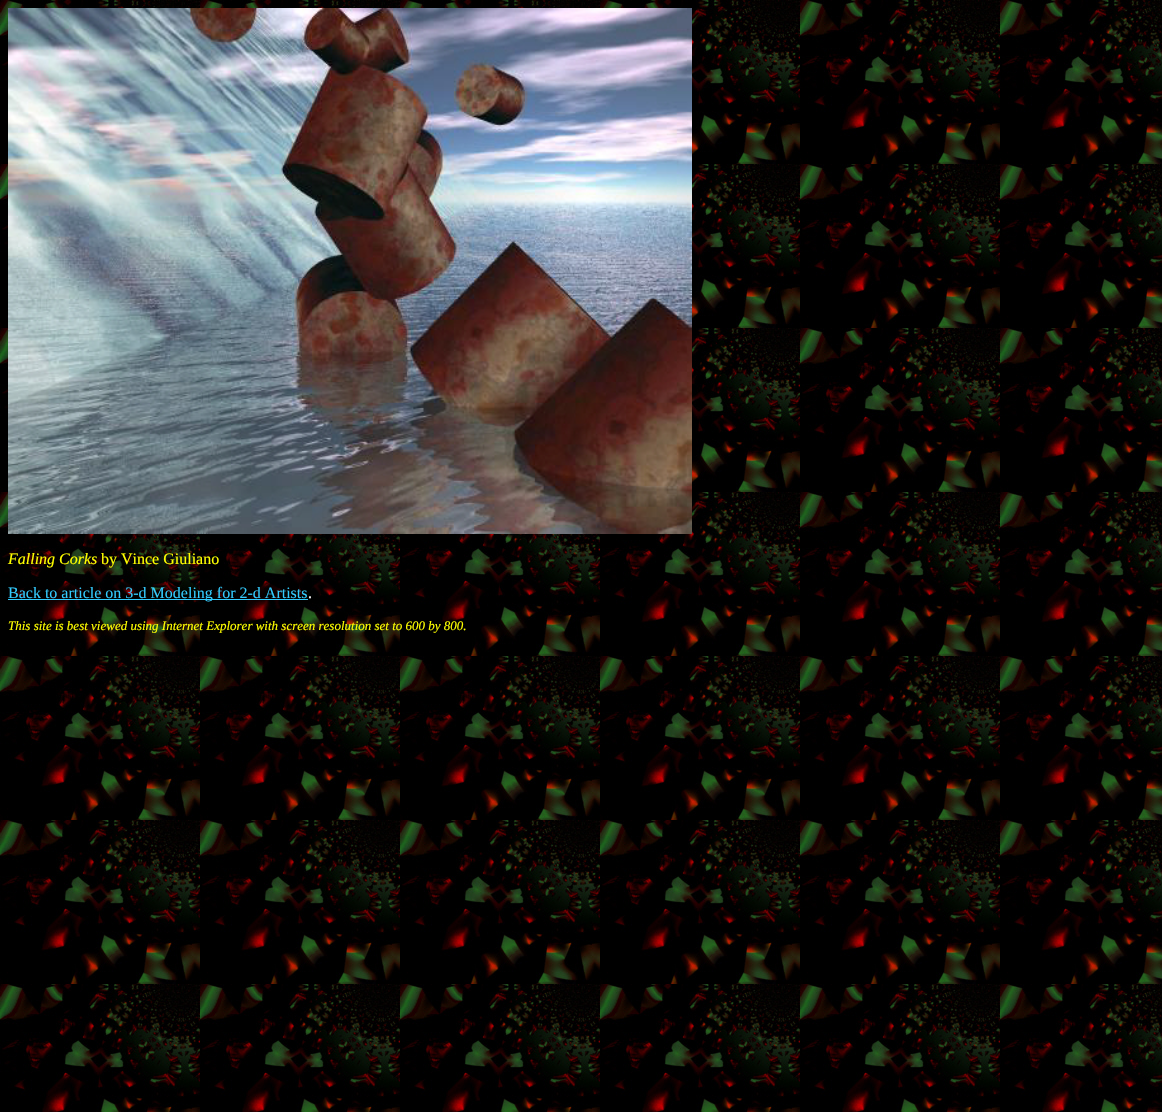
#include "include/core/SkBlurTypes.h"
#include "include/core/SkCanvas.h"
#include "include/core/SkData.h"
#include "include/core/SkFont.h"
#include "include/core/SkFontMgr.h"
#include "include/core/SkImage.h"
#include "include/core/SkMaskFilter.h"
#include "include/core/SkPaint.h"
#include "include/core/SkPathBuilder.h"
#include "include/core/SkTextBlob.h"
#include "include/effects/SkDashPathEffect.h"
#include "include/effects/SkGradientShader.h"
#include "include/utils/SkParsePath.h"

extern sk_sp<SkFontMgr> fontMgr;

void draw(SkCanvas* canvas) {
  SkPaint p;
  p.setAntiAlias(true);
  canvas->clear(SK_ColorWHITE);
  canvas->drawImageRect(SkImages::DeferredFromEncodedData(SkData::MakeFromFileName("images/1.png")), SkRect::MakeLTRB(0, 0, 1162, 1112), SkSamplingOptions());
  canvas->drawImageRect(SkImages::DeferredFromEncodedData(SkData::MakeFromFileName("images/2.png")), SkRect::MakeLTRB(8, 8, 692, 534), SkSamplingOptions());
  p.setColor(SkColorSetRGB(51, 204, 255));
  canvas->drawRect(SkRect::MakeLTRB(8, 599, 308, 600), p);
  SkFont font1(fontMgr->matchFamilyStyle("Liberation Serif", SkFontStyle::Italic()), 16);
  font1.setSubpixel(true);
  p.setColor(SkColorSetRGB(255, 255, 0));
  canvas->drawString("Falling Corks", 8, 564, font1, p);
  SkFont font2(fontMgr->matchFamilyStyle("Liberation Serif", SkFontStyle::Normal()), 16);
  font2.setSubpixel(true);
  canvas->drawString("by Vince Giuliano", 101, 564, font2, p);
  p.setColor(SkColorSetRGB(51, 204, 255));
  canvas->drawString("Back to article on 3-d Modeling for 2-d Artists", 8, 598, font2, p);
  p.setColor(SK_ColorWHITE);
  canvas->drawString(".", 308, 598, font2, p);
  SkFont font3(fontMgr->matchFamilyStyle("Liberation Serif", SkFontStyle::Italic()), 13);
  font3.setSubpixel(true);
  p.setColor(SkColorSetRGB(255, 255, 0));
  canvas->drawString("This site is best viewed using Internet Explorer with screen resolution set to 600 by 800.", 8, 630, font3, p);
}
